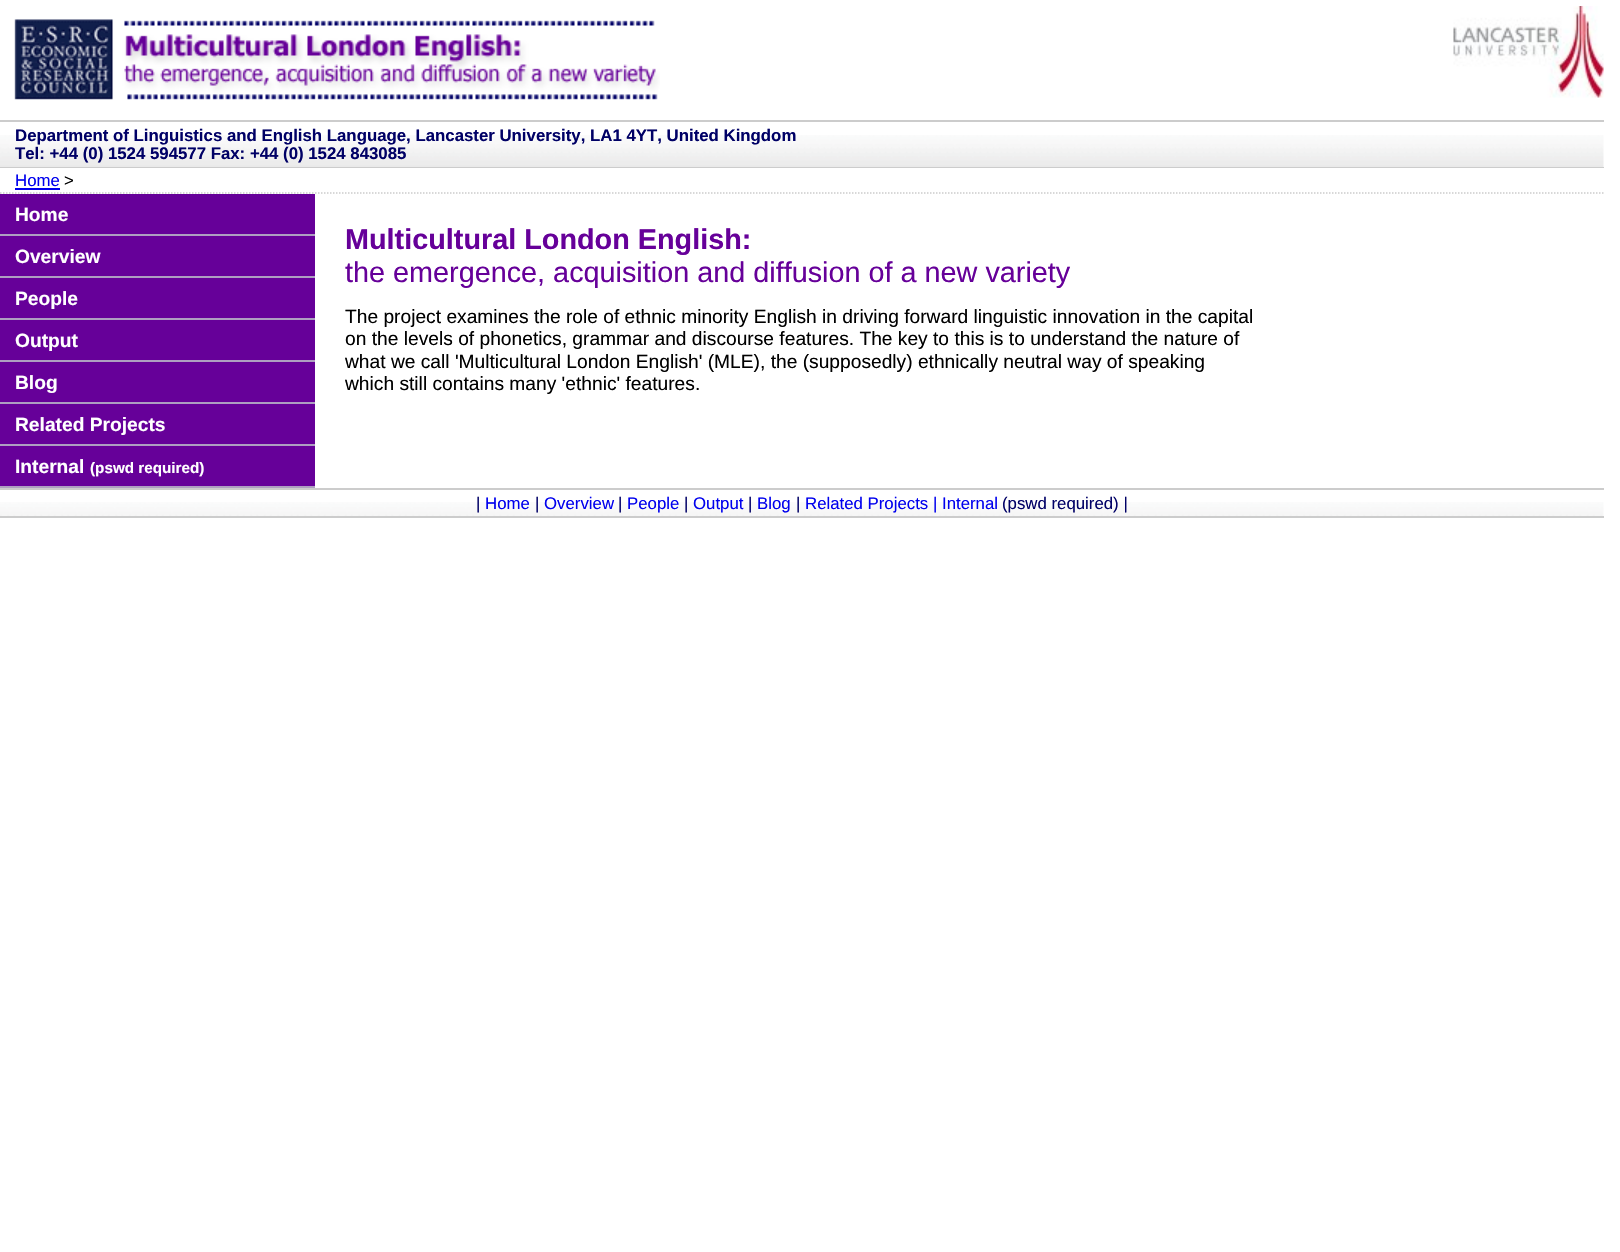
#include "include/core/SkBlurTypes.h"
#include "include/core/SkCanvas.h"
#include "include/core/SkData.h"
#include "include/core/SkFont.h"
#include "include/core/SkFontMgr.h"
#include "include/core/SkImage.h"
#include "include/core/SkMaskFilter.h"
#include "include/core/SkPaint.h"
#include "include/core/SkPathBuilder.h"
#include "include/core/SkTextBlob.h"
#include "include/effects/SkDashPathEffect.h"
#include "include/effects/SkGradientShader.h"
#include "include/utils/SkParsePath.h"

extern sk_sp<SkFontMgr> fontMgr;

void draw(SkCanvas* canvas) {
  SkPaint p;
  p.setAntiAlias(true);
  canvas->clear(SK_ColorWHITE);
  canvas->drawImageRect(SkImages::DeferredFromEncodedData(SkData::MakeFromFileName("images/1.png")), SkRect::MakeLTRB(14, 19, 660, 100), SkSamplingOptions());
  canvas->drawImageRect(SkImages::DeferredFromEncodedData(SkData::MakeFromFileName("images/2.png")), SkRect::MakeLTRB(1453, 6, 1604, 98), SkSamplingOptions());
  canvas->drawImageRect(SkImages::DeferredFromEncodedData(SkData::MakeFromFileName("images/3.png")), SkRect::MakeLTRB(0, 135, 1604, 167), SkSamplingOptions());
  p.setColor(SkColorSetRGB(204, 204, 204));
  canvas->drawRect(SkRect::MakeLTRB(0, 120, 1604, 122), p);
  canvas->drawRect(SkRect::MakeLTRB(0, 167, 1604, 168), p);
  p.setStyle(SkPaint::kStroke_Style);
  p.setStrokeWidth(1.5f);
  p.setPathEffect(SkDashPathEffect::Make({{1.5f, 1.5f}}, 0));
  canvas->drawPath(SkPathBuilder().moveTo(0, 193).lineTo(1603.5f, 193).detach(), p);
  p.setPathEffect(nullptr);
  p.setStyle(SkPaint::kFill_Style);
  p.setColor(SkColorSetRGB(0, 0, 238));
  canvas->drawRect(SkRect::MakeLTRB(15, 188, 60, 190), p);
  p.setColor(SkColorSetRGB(102, 0, 153));
  canvas->drawRect(SkRect::MakeLTRB(0, 194, 315, 234), p);
  p.setColor(SkColorSetRGB(174, 158, 193));
  canvas->drawRect(SkRect::MakeLTRB(0, 234, 315, 236), p);
  p.setColor(SkColorSetRGB(102, 0, 153));
  canvas->drawRect(SkRect::MakeLTRB(0, 236, 315, 276), p);
  p.setColor(SkColorSetRGB(174, 158, 193));
  canvas->drawRect(SkRect::MakeLTRB(0, 276, 315, 278), p);
  p.setColor(SkColorSetRGB(102, 0, 153));
  canvas->drawRect(SkRect::MakeLTRB(0, 278, 315, 318), p);
  p.setColor(SkColorSetRGB(174, 158, 193));
  canvas->drawRect(SkRect::MakeLTRB(0, 318, 315, 320), p);
  p.setColor(SkColorSetRGB(102, 0, 153));
  canvas->drawRect(SkRect::MakeLTRB(0, 320, 315, 360), p);
  p.setColor(SkColorSetRGB(174, 158, 193));
  canvas->drawRect(SkRect::MakeLTRB(0, 360, 315, 362), p);
  p.setColor(SkColorSetRGB(102, 0, 153));
  canvas->drawRect(SkRect::MakeLTRB(0, 362, 315, 402), p);
  p.setColor(SkColorSetRGB(174, 158, 193));
  canvas->drawRect(SkRect::MakeLTRB(0, 402, 315, 404), p);
  p.setColor(SkColorSetRGB(102, 0, 153));
  canvas->drawRect(SkRect::MakeLTRB(0, 404, 315, 444), p);
  p.setColor(SkColorSetRGB(174, 158, 193));
  canvas->drawRect(SkRect::MakeLTRB(0, 444, 315, 446), p);
  p.setColor(SkColorSetRGB(102, 0, 153));
  canvas->drawRect(SkRect::MakeLTRB(0, 446, 315, 486), p);
  p.setColor(SkColorSetRGB(174, 158, 193));
  canvas->drawRect(SkRect::MakeLTRB(0, 486, 315, 488), p);
  canvas->drawImageRect(SkImages::DeferredFromEncodedData(SkData::MakeFromFileName("images/4.png")), SkRect::MakeLTRB(0, 502, 1604, 516), SkSamplingOptions());
  p.setColor(SkColorSetRGB(204, 204, 204));
  canvas->drawRect(SkRect::MakeLTRB(0, 488, 1604, 490), p);
  canvas->drawRect(SkRect::MakeLTRB(0, 516, 1604, 518), p);
  SkFont font1(fontMgr->matchFamilyStyle("Liberation Sans", SkFontStyle::Bold()), 16.8f);
  font1.setSubpixel(true);
  p.setColor(SkColorSetRGB(0, 0, 102));
  canvas->drawString("Department of Linguistics and English Language, Lancaster University, LA1 4YT, United Kingdom", 15, 141, font1, p);
  canvas->drawString("Tel: +44 (0) 1524 594577 Fax: +44 (0) 1524 843085", 15, 159, font1, p);
  SkFont font2(fontMgr->matchFamilyStyle("Liberation Sans", SkFontStyle::Normal()), 16.8f);
  font2.setSubpixel(true);
  p.setColor(SkColorSetRGB(0, 0, 238));
  canvas->drawString("Home", 15, 186, font2, p);
  p.setColor(SK_ColorBLACK);
  canvas->drawString(">", 64, 186, font2, p);
  SkFont font3(fontMgr->matchFamilyStyle("Liberation Sans", SkFontStyle::Bold()), 19.2f);
  font3.setSubpixel(true);
  p.setColor(SK_ColorWHITE);
  canvas->drawString("Home", 15, 221, font3, p);
  canvas->drawString("Overview", 15, 263, font3, p);
  canvas->drawString("People", 15, 305, font3, p);
  canvas->drawString("Output", 15, 347, font3, p);
  canvas->drawString("Blog", 15, 389, font3, p);
  canvas->drawString("Related Projects", 15, 431, font3, p);
  canvas->drawString("Internal", 15, 473, font3, p);
  SkFont font4(fontMgr->matchFamilyStyle("Liberation Sans", SkFontStyle::Bold()), 15.25f);
  font4.setSubpixel(true);
  canvas->drawString("(pswd required)", 90, 473, font4, p);
  SkFont font5(fontMgr->matchFamilyStyle("Liberation Sans", SkFontStyle::Bold()), 28.8f);
  font5.setSubpixel(true);
  p.setColor(SkColorSetRGB(102, 0, 153));
  canvas->drawString("Multicultural London English:", 345, 249, font5, p);
  SkFont font6(fontMgr->matchFamilyStyle("Liberation Sans", SkFontStyle::Normal()), 28.8f);
  font6.setSubpixel(true);
  canvas->drawString("the emergence, acquisition and diffusion of a new variety", 345, 282, font6, p);
  SkFont font7(fontMgr->matchFamilyStyle("Liberation Sans", SkFontStyle::Normal()), 19.2f);
  font7.setSubpixel(true);
  p.setColor(SK_ColorBLACK);
  canvas->drawString("The project examines the role of ethnic minority English in driving forward linguistic innovation in the capital", 345, 323, font7, p);
  canvas->drawString("on the levels of phonetics, grammar and discourse features. The key to this is to understand the nature of", 345, 345, font7, p);
  canvas->drawString("what we call 'Multicultural London English' (MLE), the (supposedly) ethnically neutral way of speaking", 345, 368, font7, p);
  canvas->drawString("which still contains many 'ethnic' features.", 345, 390, font7, p);
  p.setColor(SkColorSetRGB(0, 0, 102));
  canvas->drawString("|", 476, 509, font2, p);
  p.setColor(SkColorSetRGB(0, 0, 238));
  canvas->drawString("Home", 485, 509, font2, p);
  p.setColor(SkColorSetRGB(0, 0, 102));
  canvas->drawString("|", 535, 509, font2, p);
  p.setColor(SkColorSetRGB(0, 0, 238));
  canvas->drawString("Overview", 544, 509, font2, p);
  p.setColor(SkColorSetRGB(0, 0, 102));
  canvas->drawString("|", 618, 509, font2, p);
  p.setColor(SkColorSetRGB(0, 0, 238));
  canvas->drawString("People", 627, 509, font2, p);
  p.setColor(SkColorSetRGB(0, 0, 102));
  canvas->drawString("|", 684, 509, font2, p);
  p.setColor(SkColorSetRGB(0, 0, 238));
  canvas->drawString("Output", 693, 509, font2, p);
  p.setColor(SkColorSetRGB(0, 0, 102));
  canvas->drawString("|", 748, 509, font2, p);
  p.setColor(SkColorSetRGB(0, 0, 238));
  canvas->drawString("Blog", 757, 509, font2, p);
  p.setColor(SkColorSetRGB(0, 0, 102));
  canvas->drawString("|", 796, 509, font2, p);
  p.setColor(SkColorSetRGB(0, 0, 238));
  canvas->drawString("Related Projects | Internal", 805, 509, font2, p);
  p.setColor(SkColorSetRGB(0, 0, 102));
  canvas->drawString("(pswd required) |", 1002, 509, font2, p);
}
